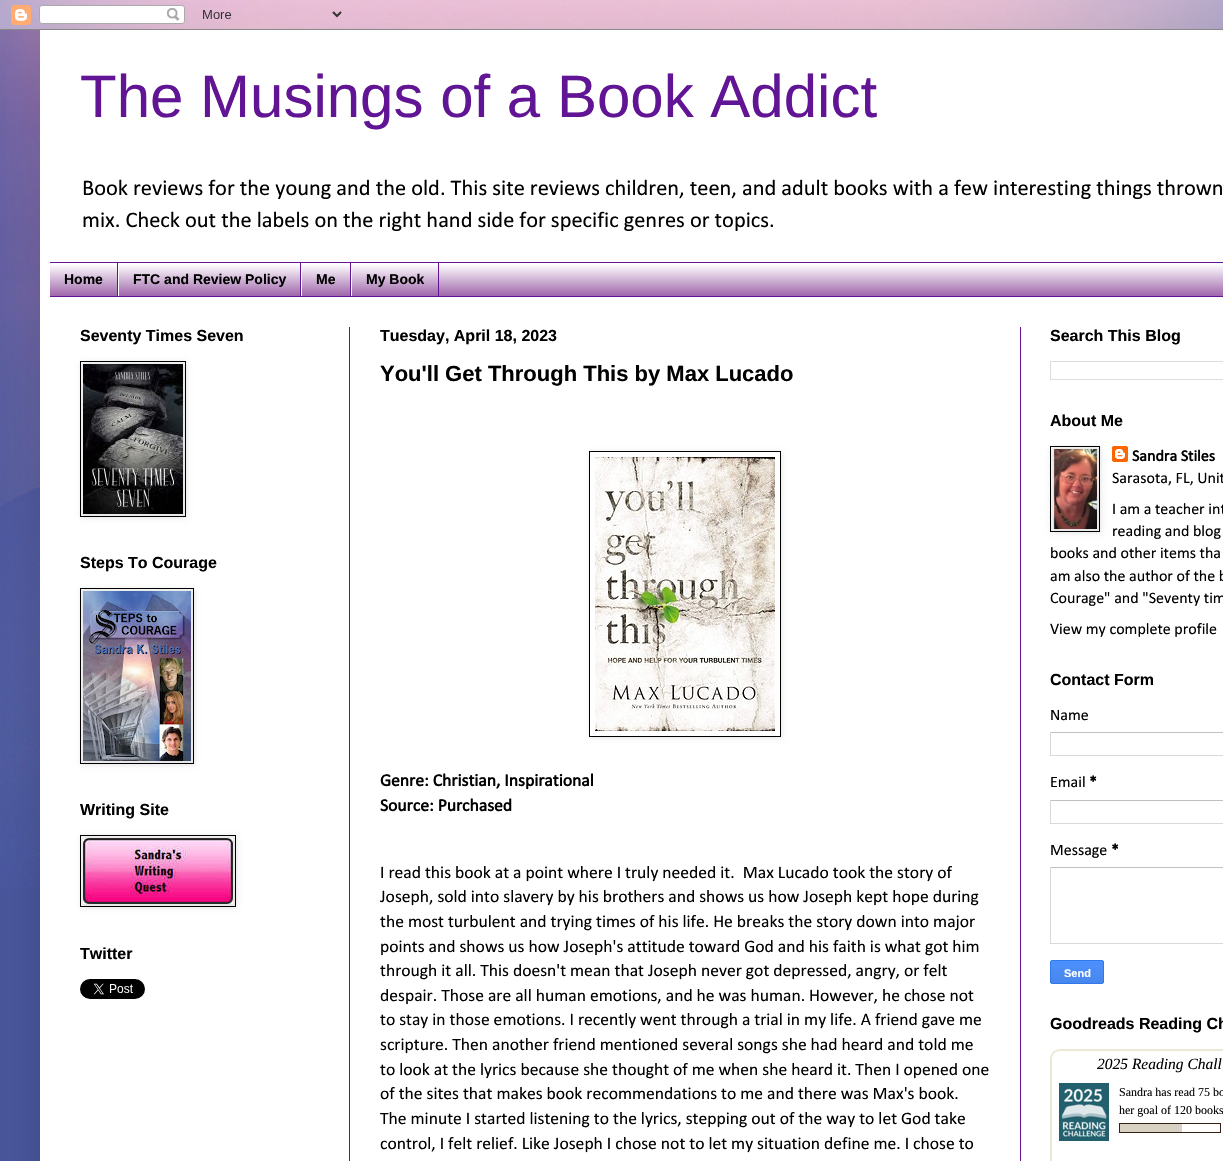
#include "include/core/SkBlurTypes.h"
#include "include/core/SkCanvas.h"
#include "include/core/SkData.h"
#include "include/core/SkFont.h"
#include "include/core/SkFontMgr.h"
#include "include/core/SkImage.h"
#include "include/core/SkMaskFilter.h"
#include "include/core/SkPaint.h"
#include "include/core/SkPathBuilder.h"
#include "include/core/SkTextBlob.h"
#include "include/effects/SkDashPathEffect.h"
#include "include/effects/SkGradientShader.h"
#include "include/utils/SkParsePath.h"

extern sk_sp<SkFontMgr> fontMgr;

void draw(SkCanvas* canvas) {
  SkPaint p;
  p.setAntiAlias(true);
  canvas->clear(SkColorSetRGB(73, 86, 155));
  canvas->drawImageRect(SkImages::DeferredFromEncodedData(SkData::MakeFromFileName("images/1.png")), SkRect::MakeLTRB(0, 0, 1223, 889), SkSamplingOptions());
  p.setColor(SkColorSetARGB(38, 0, 0, 0));
  p.setMaskFilter(SkMaskFilter::MakeBlur(kNormal_SkBlurStyle, 20));
  canvas->drawRect(SkRect::MakeLTRB(40, 30, 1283, 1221), p);
  p.setMaskFilter(nullptr);
  canvas->drawImageRect(SkImages::DeferredFromEncodedData(SkData::MakeFromFileName("images/2.png")), SkRect::MakeLTRB(0, 0, 1223, 30), SkSamplingOptions());
  p.setColor(SK_ColorWHITE);
  canvas->drawRect(SkRect::MakeLTRB(40, 30, 1223, 1161), p);
  p.setColor(SkColorSetRGB(142, 73, 155));
  canvas->drawRect(SkRect::MakeLTRB(50, 264, 1223, 296), p);
  canvas->drawImageRect(SkImages::DeferredFromEncodedData(SkData::MakeFromFileName("images/3.png")), SkRect::MakeLTRB(50, 263, 1223, 296), SkSamplingOptions());
  p.setColor(SkColorSetRGB(97, 21, 148));
  canvas->drawRect(SkRect::MakeLTRB(50, 262, 1223, 263), p);
  canvas->drawRect(SkRect::MakeLTRB(50, 296, 1223, 297), p);
  canvas->drawRect(SkRect::MakeLTRB(117, 263, 118, 296), p);
  canvas->drawRect(SkRect::MakeLTRB(300, 263, 301, 296), p);
  p.setColor(SK_ColorWHITE);
  canvas->drawRect(SkRect::MakeLTRB(118, 263, 119, 296), p);
  p.setColor(SkColorSetRGB(97, 21, 148));
  canvas->drawRect(SkRect::MakeLTRB(350, 263, 351, 296), p);
  p.setColor(SK_ColorWHITE);
  canvas->drawRect(SkRect::MakeLTRB(301, 263, 302, 296), p);
  p.setColor(SkColorSetRGB(97, 21, 148));
  canvas->drawRect(SkRect::MakeLTRB(438, 263, 439, 296), p);
  p.setColor(SK_ColorWHITE);
  canvas->drawRect(SkRect::MakeLTRB(351, 263, 352, 296), p);
  p.setColor(SkColorSetRGB(97, 21, 148));
  canvas->drawRect(SkRect::MakeLTRB(349, 327, 350, 1161), p);
  canvas->drawRect(SkRect::MakeLTRB(1020, 327, 1021, 1161), p);
  p.setColor(SkColorSetARGB(26, 0, 0, 0));
  p.setMaskFilter(SkMaskFilter::MakeBlur(kNormal_SkBlurStyle, 2.5f));
  canvas->drawRect(SkRect::MakeLTRB(81, 362, 187, 518), p);
  p.setMaskFilter(nullptr);
  p.setStyle(SkPaint::kStroke_Style);
  p.setStrokeWidth(1);
  p.setColor(SK_ColorBLACK);
  canvas->drawRect(SkRect::MakeLTRB(80.5f, 361.5f, 185.5f, 516.5f), p);
  canvas->drawImageRect(SkImages::DeferredFromEncodedData(SkData::MakeFromFileName("images/4.png")), SkRect::MakeLTRB(83, 364, 183, 514), SkSamplingOptions());
  p.setStyle(SkPaint::kFill_Style);
  p.setColor(SkColorSetARGB(26, 0, 0, 0));
  p.setMaskFilter(SkMaskFilter::MakeBlur(kNormal_SkBlurStyle, 2.5f));
  canvas->drawRect(SkRect::MakeLTRB(81, 589, 195, 765), p);
  p.setMaskFilter(nullptr);
  p.setStyle(SkPaint::kStroke_Style);
  p.setColor(SK_ColorBLACK);
  canvas->drawRect(SkRect::MakeLTRB(80.5f, 588.5f, 193.5f, 763.5f), p);
  canvas->drawImageRect(SkImages::DeferredFromEncodedData(SkData::MakeFromFileName("images/5.png")), SkRect::MakeLTRB(83, 591, 191, 761), SkSamplingOptions());
  p.setStyle(SkPaint::kFill_Style);
  p.setColor(SkColorSetARGB(26, 0, 0, 0));
  p.setMaskFilter(SkMaskFilter::MakeBlur(kNormal_SkBlurStyle, 2.5f));
  canvas->drawRect(SkRect::MakeLTRB(81, 836, 237, 908), p);
  p.setMaskFilter(nullptr);
  p.setStyle(SkPaint::kStroke_Style);
  p.setColor(SK_ColorBLACK);
  canvas->drawRect(SkRect::MakeLTRB(80.5f, 835.5f, 235.5f, 906.5f), p);
  canvas->drawImageRect(SkImages::DeferredFromEncodedData(SkData::MakeFromFileName("images/6.png")), SkRect::MakeLTRB(83, 838, 233, 904), SkSamplingOptions());
  canvas->drawImageRect(SkImages::DeferredFromEncodedData(SkData::MakeFromFileName("images/7.png")), SkRect::MakeLTRB(80, 979, 145, 999), SkSamplingOptions());
  canvas->save();
  canvas->clipPath(SkPathBuilder(SkPathFillType::kEvenOdd).moveTo(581, 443).lineTo(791, 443).lineTo(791, 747).lineTo(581, 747).close().moveTo(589, 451).lineTo(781, 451).lineTo(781, 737).lineTo(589, 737).close().detach(), true);
  p.setStyle(SkPaint::kFill_Style);
  p.setColor(SkColorSetARGB(26, 0, 0, 0));
  p.setMaskFilter(SkMaskFilter::MakeBlur(kNormal_SkBlurStyle, 2.5f));
  canvas->drawRect(SkRect::MakeLTRB(590, 452, 782, 738), p);
  p.setMaskFilter(nullptr);
  canvas->restore();
  p.setStyle(SkPaint::kStroke_Style);
  p.setColor(SK_ColorBLACK);
  canvas->drawRect(SkRect::MakeLTRB(589.5f, 451.5f, 780.5f, 736.5f), p);
  canvas->drawImageRect(SkImages::DeferredFromEncodedData(SkData::MakeFromFileName("images/8.png")), SkRect::MakeLTRB(595, 457, 775, 731), SkSamplingOptions());
  p.setColor(SkColorSetRGB(221, 221, 221));
  canvas->drawRect(SkRect::MakeLTRB(1050.5f, 361.5f, 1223.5f, 379.5f), p);
  p.setStyle(SkPaint::kFill_Style);
  p.setColor(SkColorSetARGB(26, 0, 0, 0));
  p.setMaskFilter(SkMaskFilter::MakeBlur(kNormal_SkBlurStyle, 2.5f));
  canvas->drawRect(SkRect::MakeLTRB(1051, 447, 1101, 533), p);
  p.setMaskFilter(nullptr);
  p.setStyle(SkPaint::kStroke_Style);
  p.setColor(SK_ColorBLACK);
  canvas->drawRect(SkRect::MakeLTRB(1050.5f, 446.5f, 1099.5f, 531.5f), p);
  canvas->drawImageRect(SkImages::DeferredFromEncodedData(SkData::MakeFromFileName("images/9.png")), SkRect::MakeLTRB(1053, 449, 1097, 529), SkSamplingOptions());
  canvas->drawImageRect(SkImages::DeferredFromEncodedData(SkData::MakeFromFileName("images/10.png")), SkRect::MakeLTRB(1112, 446, 1128, 462), SkSamplingOptions());
  p.setStyle(SkPaint::kFill_Style);
  p.setColor(SkColorSetRGB(192, 192, 192));
  canvas->drawRect(SkRect::MakeLTRB(1050, 732, 1223, 733), p);
  p.setColor(SkColorSetRGB(217, 217, 217));
  canvas->drawRect(SkRect::MakeLTRB(1050, 755, 1223, 756), p);
  canvas->drawRect(SkRect::MakeLTRB(1050, 732, 1051, 756), p);
  p.setColor(SkColorSetRGB(192, 192, 192));
  canvas->drawRect(SkRect::MakeLTRB(1050, 800, 1223, 801), p);
  p.setColor(SkColorSetRGB(217, 217, 217));
  canvas->drawRect(SkRect::MakeLTRB(1050, 823, 1223, 824), p);
  canvas->drawRect(SkRect::MakeLTRB(1050, 800, 1051, 824), p);
  p.setColor(SkColorSetRGB(192, 192, 192));
  canvas->drawRect(SkRect::MakeLTRB(1050, 867, 1223, 868), p);
  p.setColor(SkColorSetRGB(217, 217, 217));
  canvas->drawRect(SkRect::MakeLTRB(1050, 943, 1223, 944), p);
  canvas->drawRect(SkRect::MakeLTRB(1050, 867, 1051, 944), p);
  canvas->save();
  canvas->clipPath(SkPathBuilder().moveTo(1052, 960).lineTo(1102, 960).cubicTo(1103, 960, 1104, 961, 1104, 962).lineTo(1104, 982).cubicTo(1104, 983, 1103, 984, 1102, 984).lineTo(1052, 984).cubicTo(1051, 984, 1050, 983, 1050, 982).lineTo(1050, 962).cubicTo(1050, 961, 1051, 960, 1052, 960).close().detach(), true);
  {
    const SkColor colors[] = {SkColorSetRGB(77, 144, 254), SkColorSetRGB(71, 135, 237)};
    const float stops[] = {0, 1};
    const SkPoint ends[] = {{1077, 961}, {1077, 983}};
    p.setShader(SkGradientShader::MakeLinear(ends, colors, stops, 2, SkTileMode::kClamp));
    p.setAlpha(255);
  }
  canvas->drawRect(SkRect::MakeLTRB(1050, 961, 1104, 983), p);
  canvas->restore();
  p.setStyle(SkPaint::kStroke_Style);
  p.setShader(nullptr);
  p.setColor(SkColorSetRGB(48, 121, 237));
  canvas->drawRoundRect(SkRect::MakeLTRB(1050.5f, 960.5f, 1103.5f, 983.5f), 1.5f, 1.5f, p);
  p.setStrokeWidth(2);
  p.setColor(SkColorSetRGB(235, 232, 213));
  canvas->drawRoundRect(SkRect::MakeLTRB(1051, 1050, 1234, 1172), 9, 9, p);
  canvas->drawImageRect(SkImages::DeferredFromEncodedData(SkData::MakeFromFileName("images/11.png")), SkRect::MakeLTRB(1059, 1083, 1109, 1141), SkSamplingOptions());
  p.setStrokeWidth(1);
  p.setColor(SkColorSetRGB(56, 33, 16));
  canvas->drawRect(SkRect::MakeLTRB(1119.5f, 1123.5f, 1220.5f, 1132.5f), p);
  p.setStyle(SkPaint::kFill_Style);
  p.setColor(SkColorSetRGB(215, 210, 196));
  canvas->drawRect(SkRect::MakeLTRB(1120, 1124, 1182, 1132), p);
  SkFont font1(fontMgr->matchFamilyStyle("Liberation Sans", SkFontStyle::Normal()), 60);
  font1.setSubpixel(true);
  p.setColor(SkColorSetRGB(97, 21, 148));
  canvas->drawString("The Musings of a Book Addict", 80, 117, font1, p);
  SkFont font2(fontMgr->matchFamilyStyle("Calibri", SkFontStyle::Normal()), 22.4f);
  font2.setSubpixel(true);
  p.setColor(SK_ColorBLACK);
  canvas->drawString("Book reviews for the young and the old. This site reviews children, teen, and adult books with a few interesting things thrown", 82, 195, font2, p);
  canvas->drawString("mix. Check out the labels on the right hand side for specific genres or topics.", 82, 227, font2, p);
  SkFont font3(fontMgr->matchFamilyStyle("Liberation Sans", SkFontStyle::Bold()), 14);
  font3.setSubpixel(true);
  canvas->drawString("Home", 64, 284, font3, p);
  canvas->drawString("FTC and Review Policy", 133, 284, font3, p);
  canvas->drawString("Me", 316, 284, font3, p);
  canvas->drawString("My Book", 366, 284, font3, p);
  SkFont font4(fontMgr->matchFamilyStyle("Liberation Sans", SkFontStyle::Bold()), 16);
  font4.setSubpixel(true);
  canvas->drawString("Seventy Times Seven", 80, 341, font4, p);
  canvas->drawString("Steps To Courage", 80, 568, font4, p);
  canvas->drawString("Writing Site", 80, 815, font4, p);
  canvas->drawString("Twitter", 80, 959, font4, p);
  canvas->drawString("Tuesday, April 18, 2023", 380, 341, font4, p);
  SkFont font5(fontMgr->matchFamilyStyle("Liberation Sans", SkFontStyle::Bold()), 22);
  font5.setSubpixel(true);
  canvas->drawString("You'll Get Through This by Max Lucado", 380, 381, font5, p);
  SkFont font6(fontMgr->matchFamilyStyle("Calibri", SkFontStyle::Bold()), 17.6f);
  font6.setSubpixel(true);
  canvas->drawString("Genre: Christian, Inspirational", 380, 786, font6, p);
  canvas->drawString("Source: Purchased", 380, 811, font6, p);
  SkFont font7(fontMgr->matchFamilyStyle("Calibri", SkFontStyle::Normal()), 17.6f);
  font7.setSubpixel(true);
  canvas->drawString("I read this book at a point where I truly needed it.  Max Lucado took the story of", 380, 878, font7, p);
  canvas->drawString("Joseph, sold into slavery by his brothers and shows us how Joseph kept hope during", 380, 902, font7, p);
  canvas->drawString("the most turbulent and trying times of his life. He breaks the story down into major", 380, 927, font7, p);
  canvas->drawString("points and shows us how Joseph's attitude toward God and his faith is what got him", 380, 952, font7, p);
  canvas->drawString("through it all. This doesn't mean that Joseph never got depressed, angry, or felt", 380, 976, font7, p);
  canvas->drawString("despair. Those are all human emotions, and he was human. However, he chose not", 380, 1001, font7, p);
  canvas->drawString("to stay in those emotions. I recently went through a trial in my life. A friend gave me", 380, 1025, font7, p);
  canvas->drawString("scripture. Then another friend mentioned several songs she had heard and told me", 380, 1050, font7, p);
  canvas->drawString("to look at the lyrics because she thought of me when she heard it. Then I opened one", 380, 1075, font7, p);
  canvas->drawString("of the sites that makes book recommendations to me and there was Max's book.", 380, 1099, font7, p);
  canvas->drawString("The minute I started listening to the lyrics, stepping out of the way to let God take", 380, 1124, font7, p);
  canvas->drawString("control, I felt relief. Like Joseph I chose not to let my situation define me. I chose to", 380, 1149, font7, p);
  canvas->drawString("Search This Blog", 1050, 341, font4, p);
  canvas->drawString("About Me", 1050, 426, font4, p);
  SkFont font8(fontMgr->matchFamilyStyle("Calibri", SkFontStyle::Bold()), 16);
  font8.setSubpixel(true);
  canvas->drawString("Sandra Stiles", 1132, 461, font8, p);
  SkFont font9(fontMgr->matchFamilyStyle("Calibri", SkFontStyle::Normal()), 16);
  font9.setSubpixel(true);
  canvas->drawString("Sarasota, FL, Unit", 1112, 483, font9, p);
  canvas->drawString("I am a teacher int", 1112, 514, font9, p);
  canvas->drawString("reading and blog", 1112, 536, font9, p);
  canvas->drawString("books and other items tha", 1050, 558, font9, p);
  canvas->drawString("am also the author of the b", 1050, 581, font9, p);
  canvas->drawString("Courage\" and \"Seventy tim", 1050, 603, font9, p);
  canvas->drawString("View my complete profile", 1050, 634, font9, p);
  canvas->drawString("Contact Form", 1050, 685, font4, p);
  canvas->drawString("Name", 1050, 720, font9, p);
  canvas->drawString("Email", 1050, 787, font9, p);
  canvas->drawString("*", 1089, 787, font8, p);
  canvas->drawString("Message", 1050, 855, font9, p);
  canvas->drawString("*", 1111, 855, font8, p);
  SkFont font10(fontMgr->matchFamilyStyle("Liberation Sans", SkFontStyle::Bold()), 11);
  font10.setSubpixel(true);
  p.setColor(SK_ColorWHITE);
  canvas->drawString("Send", 1064, 977, font10, p);
  p.setColor(SK_ColorBLACK);
  canvas->drawString("Goodreads Reading Ch", 1050, 1029, font4, p);
  SkFont font11(fontMgr->matchFamilyStyle("Liberation Serif", SkFontStyle::Italic()), 15.5f);
  font11.setSubpixel(true);
  canvas->drawString("2025 Reading Chall", 1097, 1069, font11, p);
  SkFont font12(fontMgr->matchFamilyStyle("Liberation Serif", SkFontStyle::Normal()), 12);
  font12.setSubpixel(true);
  canvas->drawString("Sandra has read 75 bo", 1119, 1096, font12, p);
  canvas->drawString("her goal of 120 books", 1119, 1114, font12, p);
}
